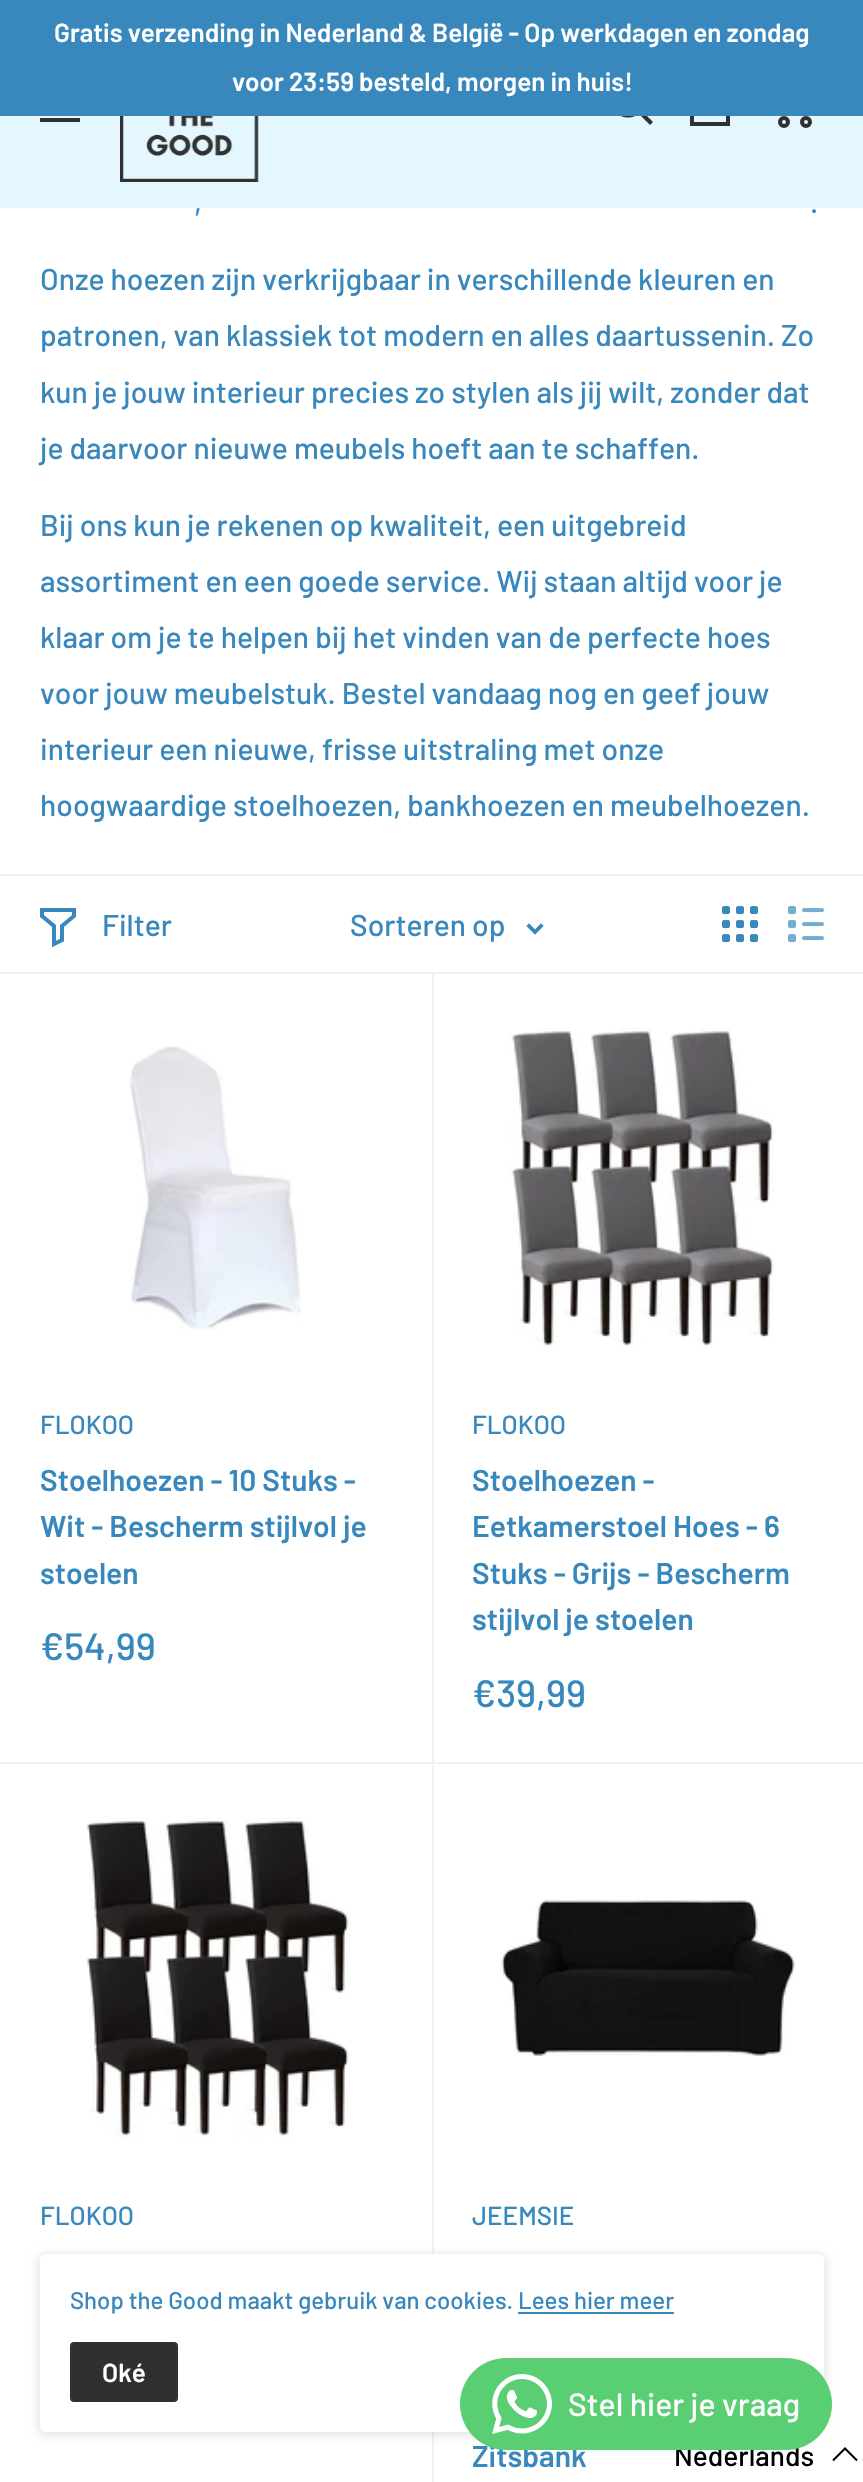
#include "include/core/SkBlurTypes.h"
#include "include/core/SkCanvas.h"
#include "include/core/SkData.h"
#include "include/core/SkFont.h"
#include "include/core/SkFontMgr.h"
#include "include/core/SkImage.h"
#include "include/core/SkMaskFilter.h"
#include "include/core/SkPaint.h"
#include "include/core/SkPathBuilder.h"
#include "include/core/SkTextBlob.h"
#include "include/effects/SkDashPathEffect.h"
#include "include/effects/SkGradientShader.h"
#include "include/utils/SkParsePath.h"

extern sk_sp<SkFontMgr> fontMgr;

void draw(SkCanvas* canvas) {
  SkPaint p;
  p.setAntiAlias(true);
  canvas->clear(SK_ColorWHITE);
  p.setColor(SkColorSetRGB(228, 247, 254));
  canvas->drawRect(SkRect::MakeLTRB(0, 116, 863, 208), p);
  p.setColor(SkColorSetRGB(47, 49, 49));
  canvas->drawPath(SkPathBuilder(SkPathFillType::kEvenOdd).moveTo(40, 118).lineTo(80, 118).lineTo(80, 122).lineTo(40, 122).close().moveTo(40, 90).lineTo(80, 90).lineTo(80, 94).lineTo(40, 94).close().moveTo(40, 104).lineTo(80, 104).lineTo(80, 108).lineTo(40, 108).close().detach(), p);
  p.setStyle(SkPaint::kStroke_Style);
  p.setStrokeWidth(4.2f);
  p.setStrokeCap(SkPaint::kSquare_Cap);
  canvas->drawPath(SkPathBuilder().moveTo(650, 122).lineTo(639.5f, 111.5f).detach(), p);
  p.setStrokeCap(SkPaint::kButt_Cap);
  canvas->drawCircle(628, 100, 15.5f, p);
  p.setStrokeWidth(4);
  canvas->drawPath(SkPathBuilder().moveTo(710, 108).cubicTo(714, 108, 717.5f, 108.5f, 721, 109.5f).cubicTo(729.5f, 112, 728, 116.5f, 728, 124).lineTo(692, 124).cubicTo(692, 116, 690.5f, 111.5f, 699.5f, 109.5f).close().moveTo(710, 108).cubicTo(698, 108, 695.5f, 84, 710, 84).cubicTo(724.5f, 84, 722, 108, 710, 108).close().detach(), p);
  p.setStyle(SkPaint::kFill_Style);
  p.setColor(SkColorSetRGB(57, 136, 189));
  canvas->drawRect(SkRect::MakeLTRB(0, 0, 863, 116), p);
  p.setStyle(SkPaint::kStroke_Style);
  p.setColor(SkColorSetRGB(47, 49, 49));
  canvas->drawCircle(784, 122, 4, p);
  canvas->drawCircle(806, 122, 4, p);
  canvas->drawImageRect(SkImages::DeferredFromEncodedData(SkData::MakeFromFileName("images/1.png")), SkRect::MakeLTRB(120, 116, 259, 182), SkSamplingOptions());
  p.setStyle(SkPaint::kFill_Style);
  p.setColor(SkColorSetRGB(242, 242, 242));
  canvas->drawRect(SkRect::MakeLTRB(0, 874, 863, 876), p);
  canvas->drawRect(SkRect::MakeLTRB(0, 1762, 863, 1764), p);
  canvas->drawRect(SkRect::MakeLTRB(432, 972, 434, 2482), p);
  canvas->drawRect(SkRect::MakeLTRB(0, 972, 863, 974), p);
  p.setStyle(SkPaint::kStroke_Style);
  p.setStrokeCap(SkPaint::kSquare_Cap);
  p.setColor(SkColorSetRGB(57, 136, 189));
  canvas->drawPath(SkPathBuilder().moveTo(74, 916).lineTo(62, 926).lineTo(62, 940).lineTo(54, 944).lineTo(54, 926).lineTo(42, 916).lineTo(42, 910).lineTo(74, 910).close().detach(), p);
  p.setStrokeWidth(3.8f);
  canvas->drawPath(SkPathBuilder().moveTo(541, 926).lineTo(535, 932).lineTo(529, 926).detach(), p);
  canvas->drawImageRect(SkImages::DeferredFromEncodedData(SkData::MakeFromFileName("images/2.png")), SkRect::MakeLTRB(722, 906, 758, 943), SkSamplingOptions());
  canvas->drawImageRect(SkImages::DeferredFromEncodedData(SkData::MakeFromFileName("images/3.png")), SkRect::MakeLTRB(788, 906, 824, 943), SkSamplingOptions());
  canvas->drawImageRect(SkImages::DeferredFromEncodedData(SkData::MakeFromFileName("images/4.png")), SkRect::MakeLTRB(129, 1046, 301, 1331), SkSamplingOptions());
  canvas->drawImageRect(SkImages::DeferredFromEncodedData(SkData::MakeFromFileName("images/5.png")), SkRect::MakeLTRB(509, 1027, 774, 1348), SkSamplingOptions());
  canvas->drawImageRect(SkImages::DeferredFromEncodedData(SkData::MakeFromFileName("images/6.png")), SkRect::MakeLTRB(87, 1817, 350, 2140), SkSamplingOptions());
  canvas->drawImageRect(SkImages::DeferredFromEncodedData(SkData::MakeFromFileName("images/7.png")), SkRect::MakeLTRB(500, 1900, 796, 2056), SkSamplingOptions());
  p.setStyle(SkPaint::kFill_Style);
  p.setColor(SkColorSetARGB(26, 0, 0, 0));
  p.setMaskFilter(SkMaskFilter::MakeBlur(kNormal_SkBlurStyle, 4));
  canvas->drawRoundRect(SkRect::MakeLTRB(38, 2254, 826, 2436), 8, 8, p);
  p.setMaskFilter(nullptr);
  p.setColor(SK_ColorWHITE);
  canvas->drawRoundRect(SkRect::MakeLTRB(40, 2254, 824, 2432), 6, 6, p);
  p.setColor(SkColorSetRGB(57, 136, 189));
  canvas->drawRect(SkRect::MakeLTRB(518, 2312, 674, 2314), p);
  p.setColor(SkColorSetRGB(47, 49, 49));
  canvas->drawRoundRect(SkRect::MakeLTRB(70, 2342, 178, 2402), 4, 4, p);
  p.setColor(SK_ColorWHITE);
  canvas->drawRect(SkRect::MakeLTRB(620, 2426, 831, 2441), p);
  p.setStyle(SkPaint::kStroke_Style);
  p.setStrokeWidth(2);
  p.setStrokeCap(SkPaint::kButt_Cap);
  p.setColor(SK_ColorBLACK);
  canvas->drawPath(SkPathBuilder().moveTo(857, 2460.5f).lineTo(845, 2448.5f).lineTo(833, 2460.5f).detach(), p);
  SkFont font1(fontMgr->matchFamilyStyle("Barlow", SkFontStyle(600, SkFontStyle::kNormal_Width, SkFontStyle::kUpright_Slant)), 26);
  font1.setSubpixel(true);
  p.setStyle(SkPaint::kFill_Style);
  p.setColor(SK_ColorWHITE);
  canvas->drawString("Gratis verzending in Nederland & België - Op werkdagen en zondag", 54, 42, font1, p);
  canvas->drawString("voor 23:59 besteld, morgen in huis!", 232, 91, font1, p);
  SkFont font2(fontMgr->matchFamilyStyle("Barlow", SkFontStyle(500, SkFontStyle::kNormal_Width, SkFontStyle::kUpright_Slant)), 30);
  font2.setSubpixel(true);
  p.setColor(SkColorSetRGB(57, 136, 189));
  canvas->drawString(",", 194, 213, font2, p);
  canvas->drawString(".", 810, 213, font2, p);
  canvas->drawString("Onze hoezen zijn verkrijgbaar in verschillende kleuren en", 40, 290, font2, p);
  canvas->drawString("patronen, van klassiek tot modern en alles daartussenin. Zo", 40, 346, font2, p);
  canvas->drawString("kun je jouw interieur precies zo stylen als jij wilt, zonder dat", 40, 403, font2, p);
  canvas->drawString("je daarvoor nieuwe meubels hoeft aan te schaffen.", 40, 459, font2, p);
  canvas->drawString("Bij ons kun je rekenen op kwaliteit, een uitgebreid", 40, 536, font2, p);
  canvas->drawString("assortiment en een goede service. Wij staan altijd voor je", 40, 592, font2, p);
  canvas->drawString("klaar om je te helpen bij het vinden van de perfecte hoes", 40, 648, font2, p);
  canvas->drawString("voor jouw meubelstuk. Bestel vandaag nog en geef jouw", 40, 704, font2, p);
  canvas->drawString("interieur een nieuwe, frisse uitstraling met onze", 40, 760, font2, p);
  canvas->drawString("hoogwaardige stoelhoezen, bankhoezen en meubelhoezen.", 40, 816, font2, p);
  canvas->drawString("Filter", 102, 936, font2, p);
  canvas->drawString("Sorteren op", 350, 936, font2, p);
  SkFont font3(fontMgr->matchFamilyStyle("Barlow", SkFontStyle(500, SkFontStyle::kNormal_Width, SkFontStyle::kUpright_Slant)), 26);
  font3.setSubpixel(true);
  canvas->drawString("FLOKOO", 40, 1434, font3, p);
  SkFont font4(fontMgr->matchFamilyStyle("Barlow", SkFontStyle(600, SkFontStyle::kNormal_Width, SkFontStyle::kUpright_Slant)), 30);
  font4.setSubpixel(true);
  canvas->drawString("Stoelhoezen - 10 Stuks -", 40, 1491, font4, p);
  canvas->drawString("Wit - Bescherm stijlvol je", 40, 1537, font4, p);
  canvas->drawString("stoelen", 40, 1584, font4, p);
  SkFont font5(fontMgr->matchFamilyStyle("Barlow", SkFontStyle(500, SkFontStyle::kNormal_Width, SkFontStyle::kUpright_Slant)), 38);
  font5.setSubpixel(true);
  canvas->drawString("€54,99", 40, 1660, font5, p);
  canvas->drawString("FLOKOO", 472, 1434, font3, p);
  canvas->drawString("Stoelhoezen -", 472, 1491, font4, p);
  canvas->drawString("Eetkamerstoel Hoes - 6", 472, 1537, font4, p);
  canvas->drawString("Stuks - Grijs - Bescherm", 472, 1584, font4, p);
  canvas->drawString("stijlvol je stoelen", 472, 1630, font4, p);
  canvas->drawString("€39,99", 472, 1707, font5, p);
  canvas->drawString("FLOKOO", 40, 2225, font3, p);
  canvas->drawString("JEEMSIE", 472, 2225, font3, p);
  canvas->drawString("Zitsbank", 472, 2467, font4, p);
  SkFont font6(fontMgr->matchFamilyStyle("Barlow", SkFontStyle(500, SkFontStyle::kNormal_Width, SkFontStyle::kUpright_Slant)), 24);
  font6.setSubpixel(true);
  canvas->drawString("Shop the Good maakt gebruik van cookies. Lees hier meer", 70, 2309, font6, p);
  p.setColor(SK_ColorWHITE);
  canvas->drawString("Oké", 102, 2382, font1, p);
  SkFont font7(fontMgr->matchFamilyStyle("Barlow", SkFontStyle(500, SkFontStyle::kNormal_Width, SkFontStyle::kUpright_Slant)), 28);
  font7.setSubpixel(true);
  p.setColor(SK_ColorBLACK);
  canvas->drawString("Nederlands", 674, 2466, font7, p);
  p.setColor(SkColorSetRGB(89, 206, 114));
  canvas->drawRoundRect(SkRect::MakeLTRB(460, 2358, 832, 2450), 46, 46, p);
  canvas->drawImageRect(SkImages::DeferredFromEncodedData(SkData::MakeFromFileName("images/8.png")), SkRect::MakeLTRB(492, 2374, 552, 2434), SkSamplingOptions());
  SkFont font8(fontMgr->matchFamilyStyle("Barlow", SkFontStyle(500, SkFontStyle::kNormal_Width, SkFontStyle::kUpright_Slant)), 32);
  font8.setSubpixel(true);
  p.setColor(SK_ColorWHITE);
  canvas->drawString("Stel hier je vraag", 568, 2416, font8, p);
}
